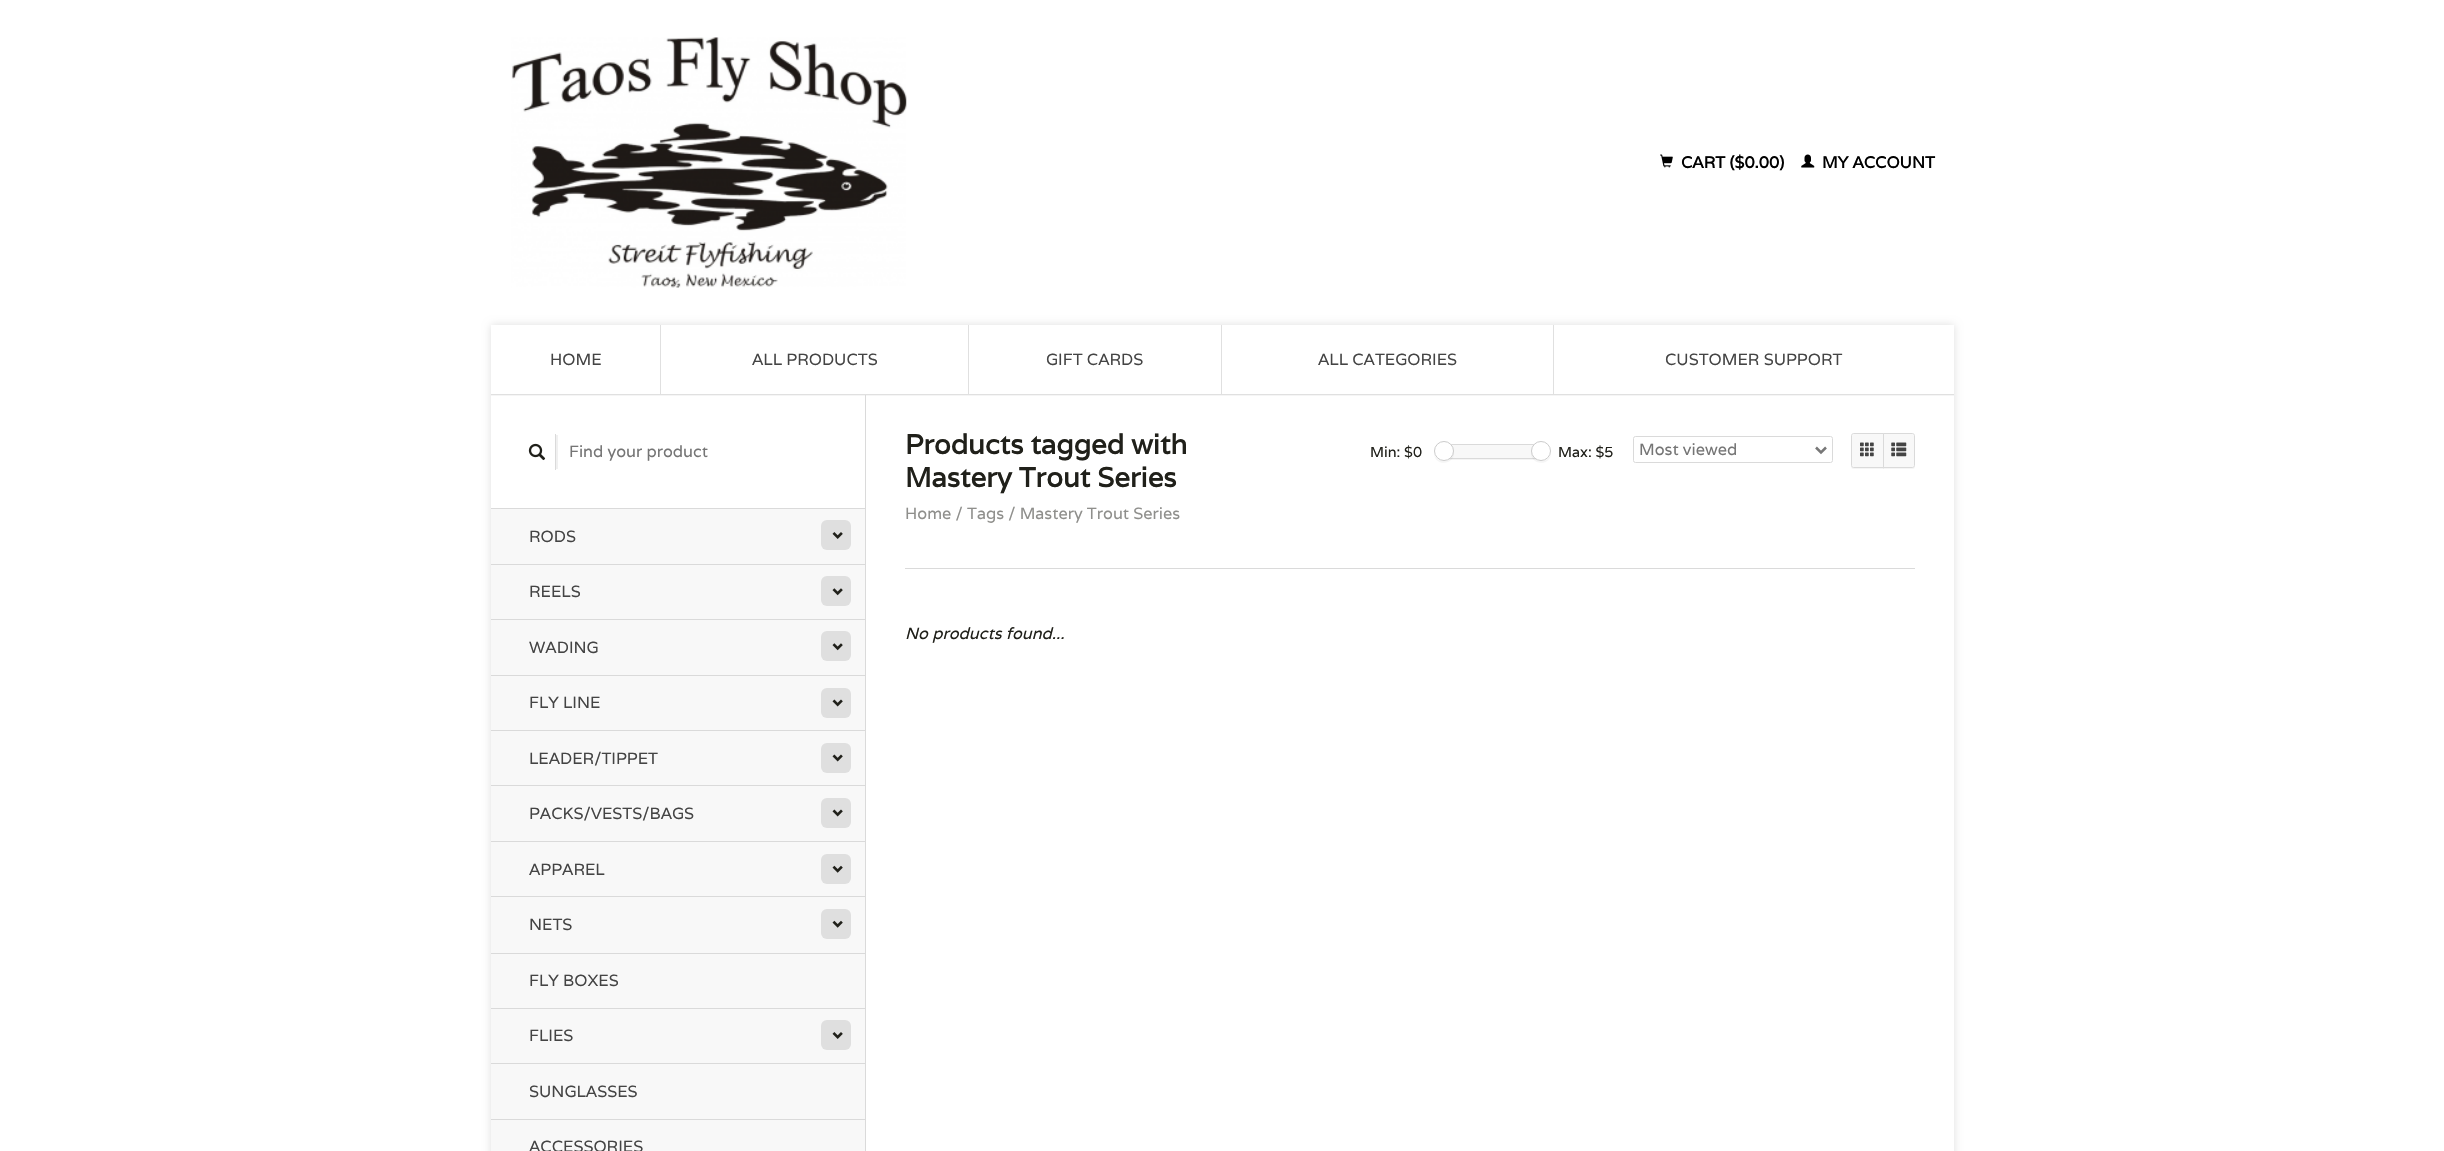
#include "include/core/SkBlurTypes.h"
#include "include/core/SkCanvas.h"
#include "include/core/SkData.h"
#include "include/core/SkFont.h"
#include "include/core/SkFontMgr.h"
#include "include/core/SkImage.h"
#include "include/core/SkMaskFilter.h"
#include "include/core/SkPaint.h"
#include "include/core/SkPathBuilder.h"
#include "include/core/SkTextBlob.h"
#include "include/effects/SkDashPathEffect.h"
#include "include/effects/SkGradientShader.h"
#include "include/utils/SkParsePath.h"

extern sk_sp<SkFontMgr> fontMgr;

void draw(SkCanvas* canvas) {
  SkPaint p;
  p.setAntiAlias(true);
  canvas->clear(SK_ColorWHITE);
  canvas->drawImageRect(SkImages::DeferredFromEncodedData(SkData::MakeFromFileName("images/1.png")), SkRect::MakeLTRB(511, 37, 907, 288), SkSamplingOptions());
  canvas->drawImageRect(SkImages::DeferredFromEncodedData(SkData::MakeFromFileName("images/2.png")), SkRect::MakeLTRB(1660, 154, 1673, 168), SkSamplingOptions());
  canvas->drawImageRect(SkImages::DeferredFromEncodedData(SkData::MakeFromFileName("images/3.png")), SkRect::MakeLTRB(1801, 154, 1815, 168), SkSamplingOptions());
  p.setColor(SkColorSetARGB(33, 0, 0, 0));
  p.setMaskFilter(SkMaskFilter::MakeBlur(kNormal_SkBlurStyle, 4.5f));
  canvas->drawRoundRect(SkRect::MakeLTRB(491, 325, 1954, 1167), 2.5f, 2.5f, p);
  p.setMaskFilter(nullptr);
  p.setColor(SK_ColorWHITE);
  canvas->drawRect(SkRect::MakeLTRB(491, 325, 1954, 1151), p);
  p.setColor(SkColorSetRGB(245, 245, 245));
  canvas->drawPath(SkPathBuilder().moveTo(491, 326).lineTo(491, 396).lineTo(1954, 396).lineTo(1954, 326).lineTo(1954, 395).lineTo(491, 395).close().detach(), p);
  p.setColor(SkColorSetRGB(224, 224, 224));
  canvas->drawRect(SkRect::MakeLTRB(491, 394, 1954, 395), p);
  canvas->drawRect(SkRect::MakeLTRB(660, 325, 661, 394), p);
  canvas->drawRect(SkRect::MakeLTRB(968, 325, 969, 394), p);
  canvas->drawRect(SkRect::MakeLTRB(1221, 325, 1222, 394), p);
  canvas->drawRect(SkRect::MakeLTRB(1553, 325, 1554, 394), p);
  p.setColor(SkColorSetRGB(218, 218, 218));
  canvas->drawRect(SkRect::MakeLTRB(865, 395, 866, 1151), p);
  canvas->save();
  canvas->clipRect(SkRect::MakeLTRB(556, 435, 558, 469));
  p.setColor(SkColorSetARGB(15, 0, 0, 0));
  p.setMaskFilter(SkMaskFilter::MakeBlur(kNormal_SkBlurStyle, 0.5f));
  canvas->drawRect(SkRect::MakeLTRB(523, 435, 558, 469), p);
  p.setMaskFilter(nullptr);
  canvas->restore();
  p.setColor(SkColorSetRGB(218, 218, 218));
  canvas->drawRect(SkRect::MakeLTRB(555, 434, 556, 470), p);
  canvas->drawImageRect(SkImages::DeferredFromEncodedData(SkData::MakeFromFileName("images/4.png")), SkRect::MakeLTRB(528, 443, 546, 461), SkSamplingOptions());
  p.setColor(SkColorSetRGB(248, 248, 248));
  canvas->drawRect(SkRect::MakeLTRB(491, 509, 865, 564), p);
  p.setColor(SkColorSetRGB(218, 218, 218));
  canvas->drawRect(SkRect::MakeLTRB(491, 508, 865, 509), p);
  p.setColor(SkColorSetRGB(223, 223, 223));
  canvas->drawRoundRect(SkRect::MakeLTRB(821, 520, 851, 550), 6, 6, p);
  canvas->drawImageRect(SkImages::DeferredFromEncodedData(SkData::MakeFromFileName("images/5.png")), SkRect::MakeLTRB(832, 532, 843, 539), SkSamplingOptions());
  p.setColor(SkColorSetRGB(248, 248, 248));
  canvas->drawRect(SkRect::MakeLTRB(491, 565, 865, 619), p);
  p.setColor(SkColorSetRGB(218, 218, 218));
  canvas->drawRect(SkRect::MakeLTRB(491, 564, 865, 565), p);
  p.setColor(SkColorSetRGB(223, 223, 223));
  canvas->drawRoundRect(SkRect::MakeLTRB(821, 576, 851, 606), 6, 6, p);
  canvas->drawImageRect(SkImages::DeferredFromEncodedData(SkData::MakeFromFileName("images/6.png")), SkRect::MakeLTRB(832, 588, 843, 596), SkSamplingOptions());
  p.setColor(SkColorSetRGB(248, 248, 248));
  canvas->drawRect(SkRect::MakeLTRB(491, 620, 865, 675), p);
  p.setColor(SkColorSetRGB(218, 218, 218));
  canvas->drawRect(SkRect::MakeLTRB(491, 619, 865, 620), p);
  p.setColor(SkColorSetRGB(223, 223, 223));
  canvas->drawRoundRect(SkRect::MakeLTRB(821, 631, 851, 661), 6, 6, p);
  canvas->drawImageRect(SkImages::DeferredFromEncodedData(SkData::MakeFromFileName("images/6.png")), SkRect::MakeLTRB(832, 643, 843, 651), SkSamplingOptions());
  p.setColor(SkColorSetRGB(248, 248, 248));
  canvas->drawRect(SkRect::MakeLTRB(491, 676, 865, 730), p);
  p.setColor(SkColorSetRGB(218, 218, 218));
  canvas->drawRect(SkRect::MakeLTRB(491, 675, 865, 676), p);
  p.setColor(SkColorSetRGB(223, 223, 223));
  canvas->drawRoundRect(SkRect::MakeLTRB(821, 688, 851, 718), 6, 6, p);
  canvas->drawImageRect(SkImages::DeferredFromEncodedData(SkData::MakeFromFileName("images/7.png")), SkRect::MakeLTRB(832, 699, 843, 707), SkSamplingOptions());
  p.setColor(SkColorSetRGB(248, 248, 248));
  canvas->drawRect(SkRect::MakeLTRB(491, 731, 865, 785), p);
  p.setColor(SkColorSetRGB(218, 218, 218));
  canvas->drawRect(SkRect::MakeLTRB(491, 730, 865, 731), p);
  p.setColor(SkColorSetRGB(223, 223, 223));
  canvas->drawRoundRect(SkRect::MakeLTRB(821, 743, 851, 773), 6, 6, p);
  canvas->drawImageRect(SkImages::DeferredFromEncodedData(SkData::MakeFromFileName("images/7.png")), SkRect::MakeLTRB(832, 754, 843, 762), SkSamplingOptions());
  p.setColor(SkColorSetRGB(248, 248, 248));
  canvas->drawRect(SkRect::MakeLTRB(491, 786, 865, 841), p);
  p.setColor(SkColorSetRGB(218, 218, 218));
  canvas->drawRect(SkRect::MakeLTRB(491, 785, 865, 786), p);
  p.setColor(SkColorSetRGB(223, 223, 223));
  canvas->drawRoundRect(SkRect::MakeLTRB(821, 798, 851, 828), 6, 6, p);
  canvas->drawImageRect(SkImages::DeferredFromEncodedData(SkData::MakeFromFileName("images/7.png")), SkRect::MakeLTRB(832, 809, 843, 817), SkSamplingOptions());
  p.setColor(SkColorSetRGB(248, 248, 248));
  canvas->drawRect(SkRect::MakeLTRB(491, 842, 865, 896), p);
  p.setColor(SkColorSetRGB(218, 218, 218));
  canvas->drawRect(SkRect::MakeLTRB(491, 841, 865, 842), p);
  p.setColor(SkColorSetRGB(223, 223, 223));
  canvas->drawRoundRect(SkRect::MakeLTRB(821, 854, 851, 884), 6, 6, p);
  canvas->drawImageRect(SkImages::DeferredFromEncodedData(SkData::MakeFromFileName("images/8.png")), SkRect::MakeLTRB(832, 865, 843, 873), SkSamplingOptions());
  p.setColor(SkColorSetRGB(248, 248, 248));
  canvas->drawRect(SkRect::MakeLTRB(491, 897, 865, 953), p);
  p.setColor(SkColorSetRGB(218, 218, 218));
  canvas->drawRect(SkRect::MakeLTRB(491, 896, 865, 897), p);
  p.setColor(SkColorSetRGB(223, 223, 223));
  canvas->drawRoundRect(SkRect::MakeLTRB(821, 909, 851, 939), 6, 6, p);
  canvas->drawImageRect(SkImages::DeferredFromEncodedData(SkData::MakeFromFileName("images/8.png")), SkRect::MakeLTRB(832, 920, 843, 928), SkSamplingOptions());
  p.setColor(SkColorSetRGB(248, 248, 248));
  canvas->drawRect(SkRect::MakeLTRB(491, 954, 865, 1008), p);
  p.setColor(SkColorSetRGB(218, 218, 218));
  canvas->drawRect(SkRect::MakeLTRB(491, 953, 865, 954), p);
  p.setColor(SkColorSetRGB(248, 248, 248));
  canvas->drawRect(SkRect::MakeLTRB(491, 1009, 865, 1063), p);
  p.setColor(SkColorSetRGB(218, 218, 218));
  canvas->drawRect(SkRect::MakeLTRB(491, 1008, 865, 1009), p);
  p.setColor(SkColorSetRGB(223, 223, 223));
  canvas->drawRoundRect(SkRect::MakeLTRB(821, 1020, 851, 1050), 6, 6, p);
  canvas->drawImageRect(SkImages::DeferredFromEncodedData(SkData::MakeFromFileName("images/5.png")), SkRect::MakeLTRB(832, 1032, 843, 1039), SkSamplingOptions());
  p.setColor(SkColorSetRGB(248, 248, 248));
  canvas->drawRect(SkRect::MakeLTRB(491, 1064, 865, 1119), p);
  p.setColor(SkColorSetRGB(218, 218, 218));
  canvas->drawRect(SkRect::MakeLTRB(491, 1063, 865, 1064), p);
  p.setColor(SkColorSetRGB(248, 248, 248));
  canvas->drawRect(SkRect::MakeLTRB(491, 1120, 865, 1151), p);
  p.setColor(SkColorSetRGB(218, 218, 218));
  canvas->drawRect(SkRect::MakeLTRB(491, 1119, 865, 1120), p);
  p.setColor(SkColorSetARGB(10, 0, 0, 0));
  canvas->drawPath(SkPathBuilder().moveTo(1445, 459).lineTo(1445, 460).lineTo(1543, 460).lineTo(1543, 445).lineTo(1542, 445).lineTo(1542, 459).close().detach(), p);
  p.setColor(SkColorSetRGB(248, 248, 248));
  canvas->drawRect(SkRect::MakeLTRB(1451, 445, 1534, 458), p);
  p.setStyle(SkPaint::kStroke_Style);
  p.setStrokeWidth(1);
  p.setColor(SkColorSetRGB(218, 218, 218));
  canvas->drawRect(SkRect::MakeLTRB(1445.5f, 444.5f, 1542.5f, 458.5f), p);
  p.setStyle(SkPaint::kFill_Style);
  p.setColor(SkColorSetARGB(10, 0, 0, 0));
  canvas->drawPath(SkPathBuilder().moveTo(1434, 453.5f).cubicTo(1435, 468, 1457, 464.5f, 1453.5f, 450.5f).cubicTo(1454.5f, 463, 1437, 465, 1434, 453.5f).close().detach(), p);
  p.setColor(SK_ColorWHITE);
  canvas->drawCircle(1444, 451, 9.5f, p);
  p.setStyle(SkPaint::kStroke_Style);
  p.setColor(SkColorSetRGB(203, 203, 203));
  canvas->drawCircle(1444, 451, 9.5f, p);
  p.setStyle(SkPaint::kFill_Style);
  p.setColor(SkColorSetARGB(10, 0, 0, 0));
  canvas->drawPath(SkPathBuilder().moveTo(1531.5f, 450.5f).cubicTo(1528, 464.5f, 1550, 468, 1551, 453.5f).cubicTo(1548, 465, 1530.5f, 463, 1531.5f, 450.5f).close().detach(), p);
  p.setColor(SK_ColorWHITE);
  canvas->drawCircle(1541, 451, 9.5f, p);
  p.setStyle(SkPaint::kStroke_Style);
  p.setColor(SkColorSetRGB(203, 203, 203));
  canvas->drawCircle(1541, 451, 9.5f, p);
  p.setColor(SkColorSetRGB(218, 218, 218));
  canvas->drawRoundRect(SkRect::MakeLTRB(1633.5f, 436.5f, 1832.5f, 462.5f), 2, 2, p);
  p.setStrokeWidth(2.5f);
  p.setColor(SkColorSetRGB(119, 119, 119));
  canvas->drawPath(SkPathBuilder().moveTo(1816, 447.5f).lineTo(1821, 452.5f).lineTo(1826, 447.5f).detach(), p);
  p.setStyle(SkPaint::kFill_Style);
  p.setColor(SkColorSetRGB(245, 245, 245));
  canvas->drawPath(SkPathBuilder().moveTo(1851, 435.5f).lineTo(1851, 436.5f).lineTo(1851, 466.5f).cubicTo(1851, 468, 1852, 469, 1853.5f, 469).lineTo(1884, 469).lineTo(1884, 434).lineTo(1884, 467.5f).lineTo(1854, 467.5f).cubicTo(1852.5f, 467.5f, 1851, 466.5f, 1851, 465).close().detach(), p);
  p.setColor(SkColorSetRGB(248, 248, 248));
  canvas->drawPath(SkPathBuilder().moveTo(1853.5f, 433.5f).lineTo(1883.5f, 433.5f).lineTo(1883.5f, 467.5f).lineTo(1853.5f, 467.5f).cubicTo(1852.5f, 467.5f, 1851.5f, 466.5f, 1851.5f, 465.5f).lineTo(1851.5f, 435.5f).cubicTo(1851.5f, 434.5f, 1852.5f, 433.5f, 1853.5f, 433.5f).close().detach(), p);
  p.setStyle(SkPaint::kStroke_Style);
  p.setStrokeWidth(1);
  p.setColor(SkColorSetRGB(218, 218, 218));
  canvas->drawPath(SkPathBuilder().moveTo(1853.5f, 433.5f).lineTo(1883.5f, 433.5f).lineTo(1883.5f, 467.5f).lineTo(1853.5f, 467.5f).cubicTo(1852.5f, 467.5f, 1851.5f, 466.5f, 1851.5f, 465.5f).lineTo(1851.5f, 435.5f).cubicTo(1851.5f, 434.5f, 1852.5f, 433.5f, 1853.5f, 433.5f).close().detach(), p);
  canvas->drawImageRect(SkImages::DeferredFromEncodedData(SkData::MakeFromFileName("images/9.png")), SkRect::MakeLTRB(1860, 442, 1874, 457), SkSamplingOptions());
  p.setStyle(SkPaint::kFill_Style);
  p.setColor(SkColorSetARGB(10, 0, 0, 0));
  canvas->drawPath(SkPathBuilder().moveTo(1883, 467.5f).lineTo(1883, 469).lineTo(1912.5f, 469).cubicTo(1914, 469, 1915, 468, 1915, 466.5f).lineTo(1915, 465).cubicTo(1915, 466.5f, 1914, 467.5f, 1912.5f, 467.5f).close().detach(), p);
  p.setColor(SkColorSetRGB(248, 248, 248));
  canvas->drawPath(SkPathBuilder().moveTo(1883.5f, 433.5f).lineTo(1912.5f, 433.5f).cubicTo(1913.5f, 433.5f, 1914.5f, 434.5f, 1914.5f, 435.5f).lineTo(1914.5f, 465.5f).cubicTo(1914.5f, 466.5f, 1913.5f, 467.5f, 1912.5f, 467.5f).lineTo(1883.5f, 467.5f).close().detach(), p);
  p.setStyle(SkPaint::kStroke_Style);
  p.setColor(SkColorSetRGB(218, 218, 218));
  canvas->drawPath(SkPathBuilder().moveTo(1883.5f, 433.5f).lineTo(1912.5f, 433.5f).cubicTo(1913.5f, 433.5f, 1914.5f, 434.5f, 1914.5f, 435.5f).lineTo(1914.5f, 465.5f).cubicTo(1914.5f, 466.5f, 1913.5f, 467.5f, 1912.5f, 467.5f).lineTo(1883.5f, 467.5f).close().detach(), p);
  canvas->drawImageRect(SkImages::DeferredFromEncodedData(SkData::MakeFromFileName("images/10.png")), SkRect::MakeLTRB(1891, 442, 1907, 457), SkSamplingOptions());
  p.setStyle(SkPaint::kFill_Style);
  canvas->drawRect(SkRect::MakeLTRB(905, 568, 1915, 569), p);
  SkFont font1(fontMgr->matchFamilyStyle("Varela", SkFontStyle::Bold()), 16.25f);
  font1.setSubpixel(true);
  p.setColor(SK_ColorBLACK);
  canvas->drawString("CART ($0.00)", 1681, 168, font1, p);
  canvas->drawString("MY ACCOUNT", 1822, 168, font1, p);
  SkFont font2(fontMgr->matchFamilyStyle("Varela", SkFontStyle::Normal()), 16.25f);
  font2.setSubpixel(true);
  p.setColor(SkColorSetRGB(68, 68, 68));
  canvas->drawString("HOME", 550, 365, font2, p);
  canvas->drawString("ALL PRODUCTS", 752, 365, font2, p);
  canvas->drawString("GIFT CARDS", 1046, 365, font2, p);
  canvas->drawString("ALL CATEGORIES", 1318, 365, font2, p);
  canvas->drawString("CUSTOMER SUPPORT", 1665, 365, font2, p);
  p.setColor(SkColorSetRGB(117, 117, 117));
  canvas->drawString("Find your product", 569, 457, font2, p);
  p.setColor(SkColorSetRGB(68, 68, 68));
  canvas->drawString("RODS", 529, 542, font2, p);
  canvas->drawString("REELS", 529, 597, font2, p);
  canvas->drawString("WADING", 529, 653, font2, p);
  canvas->drawString("FLY LINE", 529, 708, font2, p);
  canvas->drawString("LEADER/TIPPET", 529, 764, font2, p);
  canvas->drawString("PACKS/VESTS/BAGS", 529, 819, font2, p);
  canvas->drawString("APPAREL", 529, 875, font2, p);
  canvas->drawString("NETS", 529, 930, font2, p);
  canvas->drawString("FLY BOXES", 529, 986, font2, p);
  canvas->drawString("FLIES", 529, 1041, font2, p);
  canvas->drawString("SUNGLASSES", 529, 1097, font2, p);
  canvas->drawString("ACCESSORIES", 529, 1152, font2, p);
  SkFont font3(fontMgr->matchFamilyStyle("Varela", SkFontStyle::Bold()), 27.5f);
  font3.setSubpixel(true);
  p.setColor(SkColorSetRGB(32, 32, 26));
  canvas->drawString("Products tagged with", 905, 454, font3, p);
  canvas->drawString("Mastery Trout Series", 905, 487, font3, p);
  p.setColor(SkColorSetRGB(143, 143, 140));
  canvas->drawString("Home / Tags / Mastery Trout Series", 905, 519, font2, p);
  SkFont font4(fontMgr->matchFamilyStyle("Varela", SkFontStyle::Normal()), 14.5f);
  font4.setSubpixel(true);
  p.setColor(SkColorSetRGB(32, 32, 26));
  canvas->drawString("Min: $0", 1370, 457, font4, p);
  canvas->drawString("Max: $5", 1558, 457, font4, p);
  p.setColor(SkColorSetRGB(117, 117, 117));
  canvas->drawString("Most viewed", 1639, 455, font2, p);
  SkFont font5(fontMgr->matchFamilyStyle("Varela", SkFontStyle::Italic()), 16.25f);
  font5.setSubpixel(true);
  p.setColor(SkColorSetRGB(32, 32, 26));
  canvas->drawString("No products found...", 905, 639, font5, p);
}
